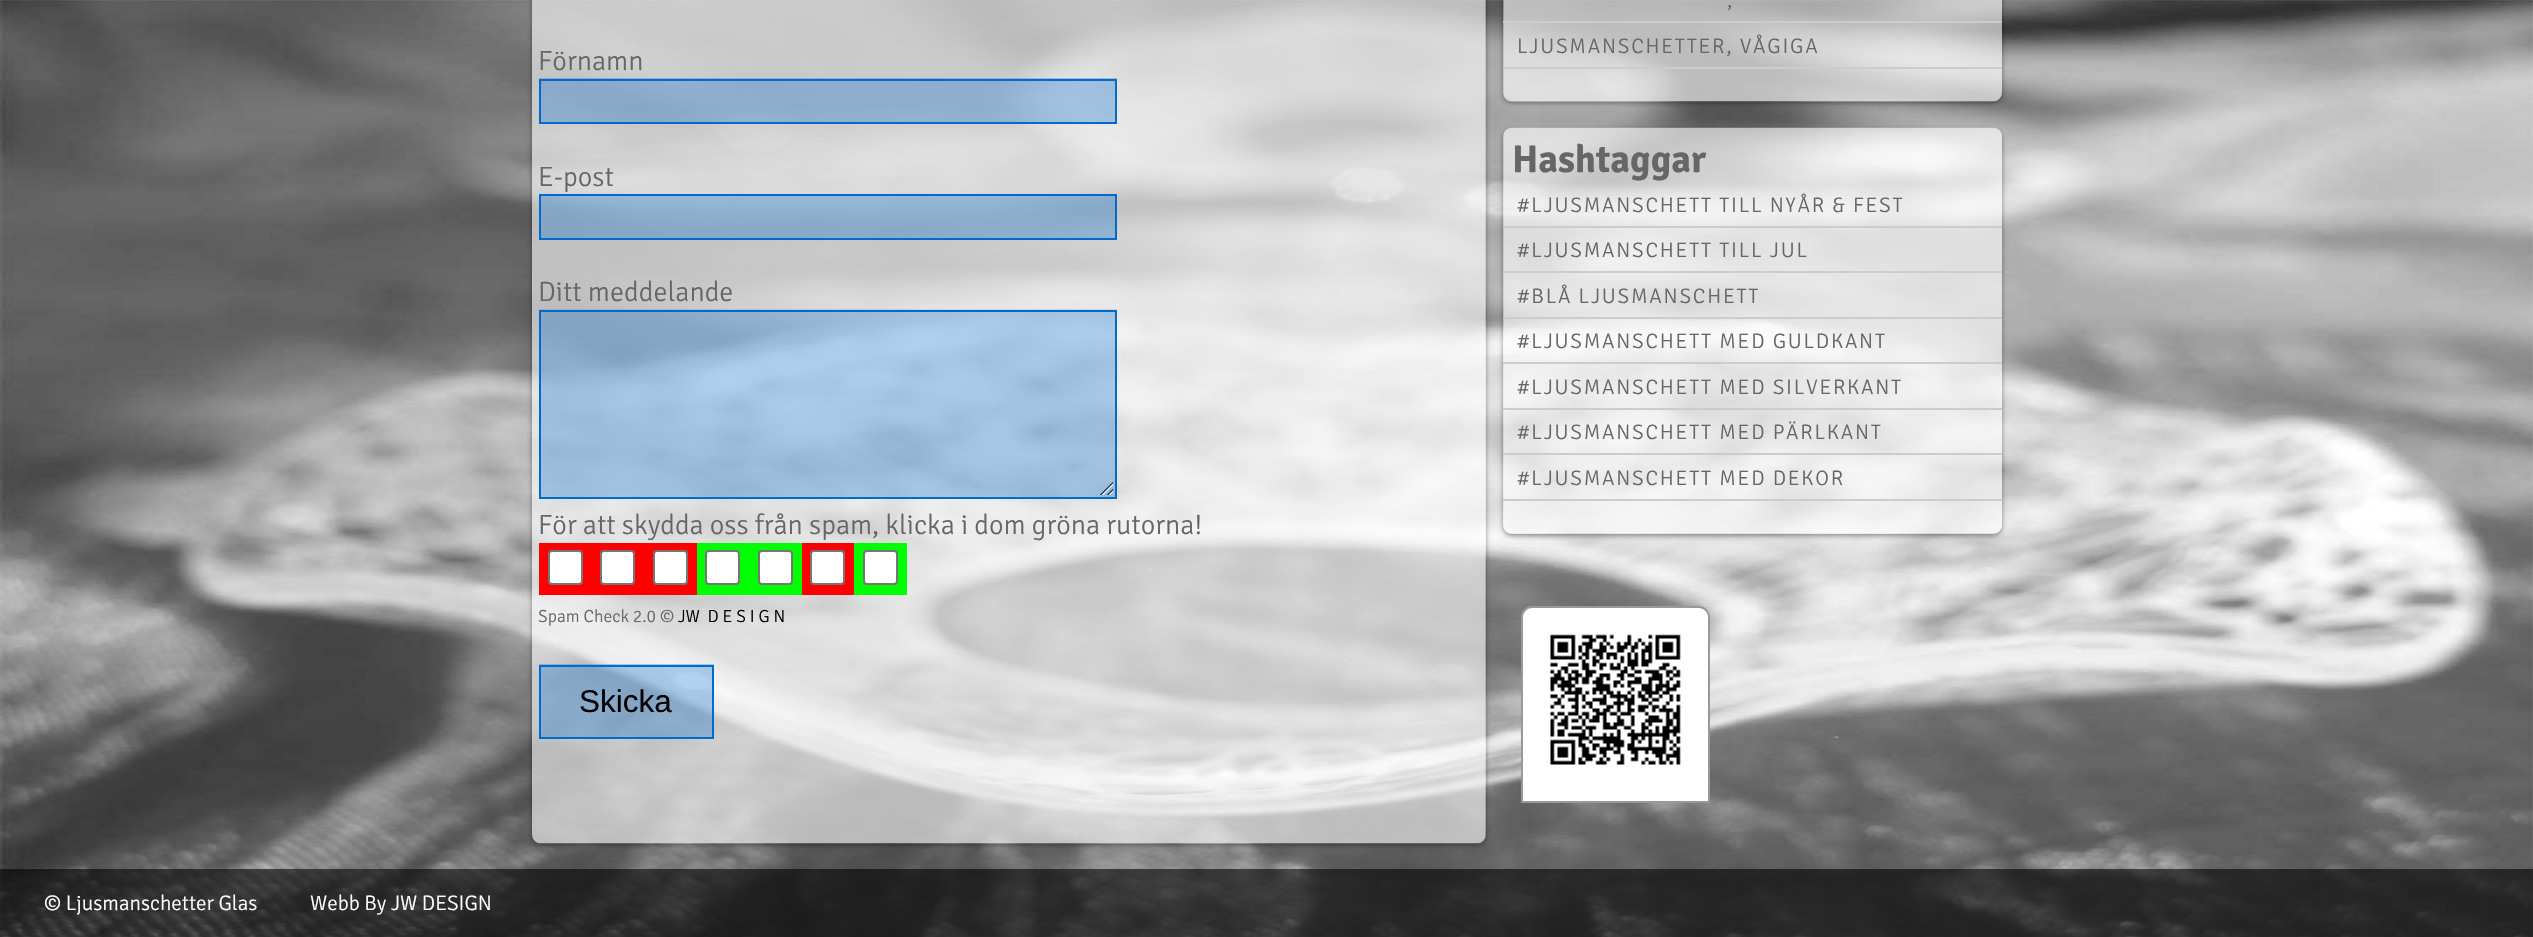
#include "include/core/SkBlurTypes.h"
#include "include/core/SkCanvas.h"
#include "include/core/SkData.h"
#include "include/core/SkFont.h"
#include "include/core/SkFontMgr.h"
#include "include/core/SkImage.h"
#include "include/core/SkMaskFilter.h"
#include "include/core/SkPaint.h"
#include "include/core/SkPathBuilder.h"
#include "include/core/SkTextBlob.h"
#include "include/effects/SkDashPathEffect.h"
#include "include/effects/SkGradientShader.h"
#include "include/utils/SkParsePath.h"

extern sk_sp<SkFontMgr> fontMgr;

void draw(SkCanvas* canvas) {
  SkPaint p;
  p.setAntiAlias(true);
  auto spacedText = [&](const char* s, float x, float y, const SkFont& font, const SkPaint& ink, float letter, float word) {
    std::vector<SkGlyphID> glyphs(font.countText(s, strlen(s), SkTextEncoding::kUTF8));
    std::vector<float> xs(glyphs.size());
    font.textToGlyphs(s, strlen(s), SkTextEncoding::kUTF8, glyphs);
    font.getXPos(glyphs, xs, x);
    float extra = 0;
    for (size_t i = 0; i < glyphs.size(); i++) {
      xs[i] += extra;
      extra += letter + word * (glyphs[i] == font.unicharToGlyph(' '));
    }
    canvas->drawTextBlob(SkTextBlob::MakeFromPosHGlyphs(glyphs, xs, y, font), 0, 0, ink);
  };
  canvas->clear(SK_ColorWHITE);
  canvas->drawImageRect(SkImages::DeferredFromEncodedData(SkData::MakeFromFileName("images/1.png")), SkRect::MakeLTRB(0, 0, 2533, 937), SkSamplingOptions());
  canvas->save();
  canvas->clipPath(SkPathBuilder(SkPathFillType::kEvenOdd).moveTo(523, 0).lineTo(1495, 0).lineTo(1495, 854).lineTo(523, 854).close().moveTo(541, -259).lineTo(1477, -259).cubicTo(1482, -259, 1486, -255, 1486, -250).lineTo(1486, 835).cubicTo(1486, 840, 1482, 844, 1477, 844).lineTo(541, 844).cubicTo(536, 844, 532, 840, 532, 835).lineTo(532, -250).cubicTo(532, -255, 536, -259, 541, -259).close().detach(), true);
  p.setColor(SkColorSetARGB(102, 0, 0, 0));
  p.setMaskFilter(SkMaskFilter::MakeBlur(kNormal_SkBlurStyle, 2.5f));
  canvas->drawRoundRect(SkRect::MakeLTRB(532, -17, 1486, 845), 9, 9, p);
  p.setMaskFilter(nullptr);
  canvas->restore();
  canvas->drawImageRect(SkImages::DeferredFromEncodedData(SkData::MakeFromFileName("images/2.png")), SkRect::MakeLTRB(532, 0, 1486, 844), SkSamplingOptions());
  p.setColor(SkColorSetARGB(77, 0, 106, 209));
  canvas->drawRect(SkRect::MakeLTRB(539, 78, 1117, 122), p);
  p.setStyle(SkPaint::kStroke_Style);
  p.setStrokeWidth(2);
  p.setColor(SkColorSetRGB(2, 106, 203));
  canvas->drawRect(SkRect::MakeLTRB(540, 80, 1116, 123), p);
  p.setStyle(SkPaint::kFill_Style);
  p.setColor(SkColorSetARGB(77, 0, 106, 209));
  canvas->drawRect(SkRect::MakeLTRB(540, 195, 1116, 239), p);
  p.setStyle(SkPaint::kStroke_Style);
  p.setColor(SkColorSetRGB(2, 106, 203));
  canvas->drawRect(SkRect::MakeLTRB(540, 195, 1116, 239), p);
  canvas->drawImageRect(SkImages::DeferredFromEncodedData(SkData::MakeFromFileName("images/3.png")), SkRect::MakeLTRB(539, 309, 1117, 497), SkSamplingOptions());
  canvas->drawRect(SkRect::MakeLTRB(540, 311, 1116, 498), p);
  p.setStyle(SkPaint::kFill_Style);
  p.setColor(SkColorSetRGB(255, 0, 0));
  canvas->drawRect(SkRect::MakeLTRB(539, 543, 697, 595), p);
  p.setColor(SK_ColorWHITE);
  canvas->drawRoundRect(SkRect::MakeLTRB(549, 551, 582, 584), 3, 3, p);
  p.setStyle(SkPaint::kStroke_Style);
  p.setColor(SkColorSetRGB(118, 118, 118));
  canvas->drawRoundRect(SkRect::MakeLTRB(549, 551, 582, 584), 3, 3, p);
  p.setStyle(SkPaint::kFill_Style);
  p.setColor(SkColorSetRGB(0, 255, 0));
  canvas->drawRect(SkRect::MakeLTRB(697, 543, 802, 595), p);
  p.setColor(SK_ColorWHITE);
  canvas->drawRoundRect(SkRect::MakeLTRB(706, 551, 739, 584), 3, 3, p);
  p.setStyle(SkPaint::kStroke_Style);
  p.setColor(SkColorSetRGB(118, 118, 118));
  canvas->drawRoundRect(SkRect::MakeLTRB(706, 551, 739, 584), 3, 3, p);
  p.setStyle(SkPaint::kFill_Style);
  p.setColor(SkColorSetRGB(255, 0, 0));
  canvas->drawRect(SkRect::MakeLTRB(802, 543, 854, 595), p);
  p.setColor(SK_ColorWHITE);
  canvas->drawRoundRect(SkRect::MakeLTRB(811, 551, 844, 584), 3, 3, p);
  p.setStyle(SkPaint::kStroke_Style);
  p.setColor(SkColorSetRGB(118, 118, 118));
  canvas->drawRoundRect(SkRect::MakeLTRB(811, 551, 844, 584), 3, 3, p);
  p.setStyle(SkPaint::kFill_Style);
  p.setColor(SkColorSetRGB(0, 255, 0));
  canvas->drawRect(SkRect::MakeLTRB(854, 543, 907, 595), p);
  p.setColor(SK_ColorWHITE);
  canvas->drawRoundRect(SkRect::MakeLTRB(864, 551, 897, 584), 3, 3, p);
  p.setStyle(SkPaint::kStroke_Style);
  p.setColor(SkColorSetRGB(118, 118, 118));
  canvas->drawRoundRect(SkRect::MakeLTRB(864, 551, 897, 584), 3, 3, p);
  p.setStyle(SkPaint::kFill_Style);
  p.setColor(SK_ColorWHITE);
  canvas->drawRoundRect(SkRect::MakeLTRB(601, 551, 634, 584), 3, 3, p);
  p.setStyle(SkPaint::kStroke_Style);
  p.setColor(SkColorSetRGB(118, 118, 118));
  canvas->drawRoundRect(SkRect::MakeLTRB(601, 551, 634, 584), 3, 3, p);
  p.setStyle(SkPaint::kFill_Style);
  p.setColor(SK_ColorWHITE);
  canvas->drawRoundRect(SkRect::MakeLTRB(654, 551, 687, 584), 3, 3, p);
  p.setStyle(SkPaint::kStroke_Style);
  p.setColor(SkColorSetRGB(118, 118, 118));
  canvas->drawRoundRect(SkRect::MakeLTRB(654, 551, 687, 584), 3, 3, p);
  p.setStyle(SkPaint::kFill_Style);
  p.setColor(SK_ColorWHITE);
  canvas->drawRoundRect(SkRect::MakeLTRB(759, 551, 792, 584), 3, 3, p);
  p.setStyle(SkPaint::kStroke_Style);
  p.setColor(SkColorSetRGB(118, 118, 118));
  canvas->drawRoundRect(SkRect::MakeLTRB(759, 551, 792, 584), 3, 3, p);
  p.setStyle(SkPaint::kFill_Style);
  p.setColor(SkColorSetARGB(77, 0, 106, 209));
  canvas->drawRect(SkRect::MakeLTRB(539, 664, 714, 737), p);
  p.setStyle(SkPaint::kStroke_Style);
  p.setColor(SkColorSetRGB(2, 106, 203));
  canvas->drawRect(SkRect::MakeLTRB(540, 666, 713, 738), p);
  canvas->save();
  canvas->clipPath(SkPathBuilder(SkPathFillType::kEvenOdd).moveTo(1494, 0).lineTo(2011, 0).lineTo(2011, 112).lineTo(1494, 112).close().moveTo(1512, -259).lineTo(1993, -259).cubicTo(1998, -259, 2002, -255, 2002, -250).lineTo(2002, 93).cubicTo(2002, 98, 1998, 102, 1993, 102).lineTo(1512, 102).cubicTo(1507, 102, 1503, 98, 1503, 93).lineTo(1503, -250).cubicTo(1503, -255, 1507, -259, 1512, -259).close().detach(), true);
  p.setStyle(SkPaint::kFill_Style);
  p.setColor(SkColorSetARGB(102, 0, 0, 0));
  p.setMaskFilter(SkMaskFilter::MakeBlur(kNormal_SkBlurStyle, 2.5f));
  canvas->drawRoundRect(SkRect::MakeLTRB(1503, -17, 2002, 103), 9, 9, p);
  p.setMaskFilter(nullptr);
  canvas->restore();
  canvas->drawImageRect(SkImages::DeferredFromEncodedData(SkData::MakeFromFileName("images/4.png")), SkRect::MakeLTRB(1503, 0, 2002, 102), SkSamplingOptions());
  p.setColor(SkColorSetRGB(204, 204, 204));
  canvas->drawRect(SkRect::MakeLTRB(1503, 21, 2002, 23), p);
  canvas->drawRect(SkRect::MakeLTRB(1503, 67, 2002, 69), p);
  canvas->save();
  canvas->clipPath(SkPathBuilder(SkPathFillType::kEvenOdd).moveTo(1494, 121).lineTo(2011, 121).lineTo(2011, 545).lineTo(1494, 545).close().moveTo(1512, 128).lineTo(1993, 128).cubicTo(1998, 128, 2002, 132, 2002, 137).lineTo(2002, 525).cubicTo(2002, 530, 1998, 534, 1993, 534).lineTo(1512, 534).cubicTo(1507, 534, 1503, 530, 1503, 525).lineTo(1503, 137).cubicTo(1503, 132, 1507, 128, 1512, 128).close().detach(), true);
  p.setColor(SkColorSetARGB(102, 0, 0, 0));
  p.setMaskFilter(SkMaskFilter::MakeBlur(kNormal_SkBlurStyle, 2.5f));
  canvas->drawRoundRect(SkRect::MakeLTRB(1503, 130, 2002, 536), 9, 9, p);
  p.setMaskFilter(nullptr);
  canvas->restore();
  canvas->drawImageRect(SkImages::DeferredFromEncodedData(SkData::MakeFromFileName("images/5.png")), SkRect::MakeLTRB(1503, 127, 2002, 534), SkSamplingOptions());
  p.setColor(SkColorSetRGB(204, 204, 204));
  canvas->drawRect(SkRect::MakeLTRB(1503, 226, 2002, 228), p);
  canvas->drawRect(SkRect::MakeLTRB(1503, 271, 2002, 273), p);
  canvas->drawRect(SkRect::MakeLTRB(1503, 317, 2002, 319), p);
  canvas->drawRect(SkRect::MakeLTRB(1503, 362, 2002, 364), p);
  canvas->drawRect(SkRect::MakeLTRB(1503, 408, 2002, 410), p);
  canvas->drawRect(SkRect::MakeLTRB(1503, 453, 2002, 455), p);
  canvas->drawRect(SkRect::MakeLTRB(1503, 499, 2002, 501), p);
  p.setColor(SK_ColorWHITE);
  canvas->drawPath(SkPathBuilder().moveTo(1532, 607).lineTo(1699, 607).cubicTo(1704.5f, 607, 1709, 611.5f, 1709, 617).lineTo(1709, 802).lineTo(1522, 802).lineTo(1522, 617).cubicTo(1522, 611.5f, 1526.5f, 607, 1532, 607).close().detach(), p);
  p.setStyle(SkPaint::kStroke_Style);
  p.setColor(SkColorSetRGB(153, 153, 153));
  canvas->drawPath(SkPathBuilder().moveTo(1532, 607).lineTo(1699, 607).cubicTo(1704.5f, 607, 1709, 611.5f, 1709, 617).lineTo(1709, 802).lineTo(1522, 802).lineTo(1522, 617).cubicTo(1522, 611.5f, 1526.5f, 607, 1532, 607).close().detach(), p);
  canvas->drawImageRect(SkImages::DeferredFromEncodedData(SkData::MakeFromFileName("images/6.png")), SkRect::MakeLTRB(1550, 634, 1681, 765), SkSamplingOptions());
  p.setStyle(SkPaint::kFill_Style);
  p.setColor(SkColorSetARGB(153, 0, 0, 0));
  canvas->drawRect(SkRect::MakeLTRB(0, 869, 2533, 937), p);
  SkFont font1(fontMgr->matchFamilyStyle("Signika Negative", SkFontStyle(300, SkFontStyle::kNormal_Width, SkFontStyle::kUpright_Slant)), 28);
  font1.setSubpixel(true);
  p.setColor(SkColorSetRGB(102, 102, 102));
  canvas->drawString("Förnamn", 538, 70, font1, p);
  canvas->drawString("E-post", 538, 186, font1, p);
  canvas->drawString("Ditt meddelande", 538, 301, font1, p);
  canvas->drawString("För att skydda oss från spam, klicka i dom gröna rutorna!", 538, 534, font1, p);
  SkFont font2(fontMgr->matchFamilyStyle("Signika Negative", SkFontStyle(300, SkFontStyle::kNormal_Width, SkFontStyle::kUpright_Slant)), 17.5f);
  font2.setSubpixel(true);
  canvas->drawString("Spam Check 2.0 ©", 538, 622, font2, p);
  p.setColor(SK_ColorBLACK);
  canvas->drawString("JW  D E S I G N", 678, 622, font2, p);
  SkFont font3(fontMgr->matchFamilyStyle("Liberation Sans", SkFontStyle::Normal()), 31.5f);
  font3.setSubpixel(true);
  canvas->drawString("Skicka", 579, 712, font3, p);
  SkFont font4(fontMgr->matchFamilyStyle("Signika Negative", SkFontStyle(300, SkFontStyle::kNormal_Width, SkFontStyle::kUpright_Slant)), 21);
  font4.setSubpixel(true);
  p.setColor(SkColorSetRGB(102, 102, 102));
  spacedText(",", 1727, 7, font4, p, 1.75f, 0);
  spacedText("LJUSMANSCHETTER, VÅGIGA", 1517, 53, font4, p, 1.75f, 0);
  SkFont font5(fontMgr->matchFamilyStyle("Signika Negative", SkFontStyle::Bold()), 38.5f);
  font5.setSubpixel(true);
  canvas->drawString("Hashtaggar", 1512, 172, font5, p);
  spacedText("#LJUSMANSCHETT TILL NYÅR & FEST", 1517, 212, font4, p, 1.75f, 0);
  spacedText("#LJUSMANSCHETT TILL JUL", 1517, 257, font4, p, 1.75f, 0);
  spacedText("#BLÅ LJUSMANSCHETT", 1517, 303, font4, p, 1.75f, 0);
  spacedText("#LJUSMANSCHETT MED GULDKANT", 1517, 348, font4, p, 1.75f, 0);
  spacedText("#LJUSMANSCHETT MED SILVERKANT", 1517, 394, font4, p, 1.75f, 0);
  spacedText("#LJUSMANSCHETT MED PÄRLKANT", 1517, 439, font4, p, 1.75f, 0);
  spacedText("#LJUSMANSCHETT MED DEKOR", 1517, 485, font4, p, 1.75f, 0);
  p.setColor(SK_ColorWHITE);
  canvas->drawString("© Ljusmanschetter Glas", 44, 910, font4, p);
  canvas->drawString("Webb By JW DESIGN", 310, 910, font4, p);
}
